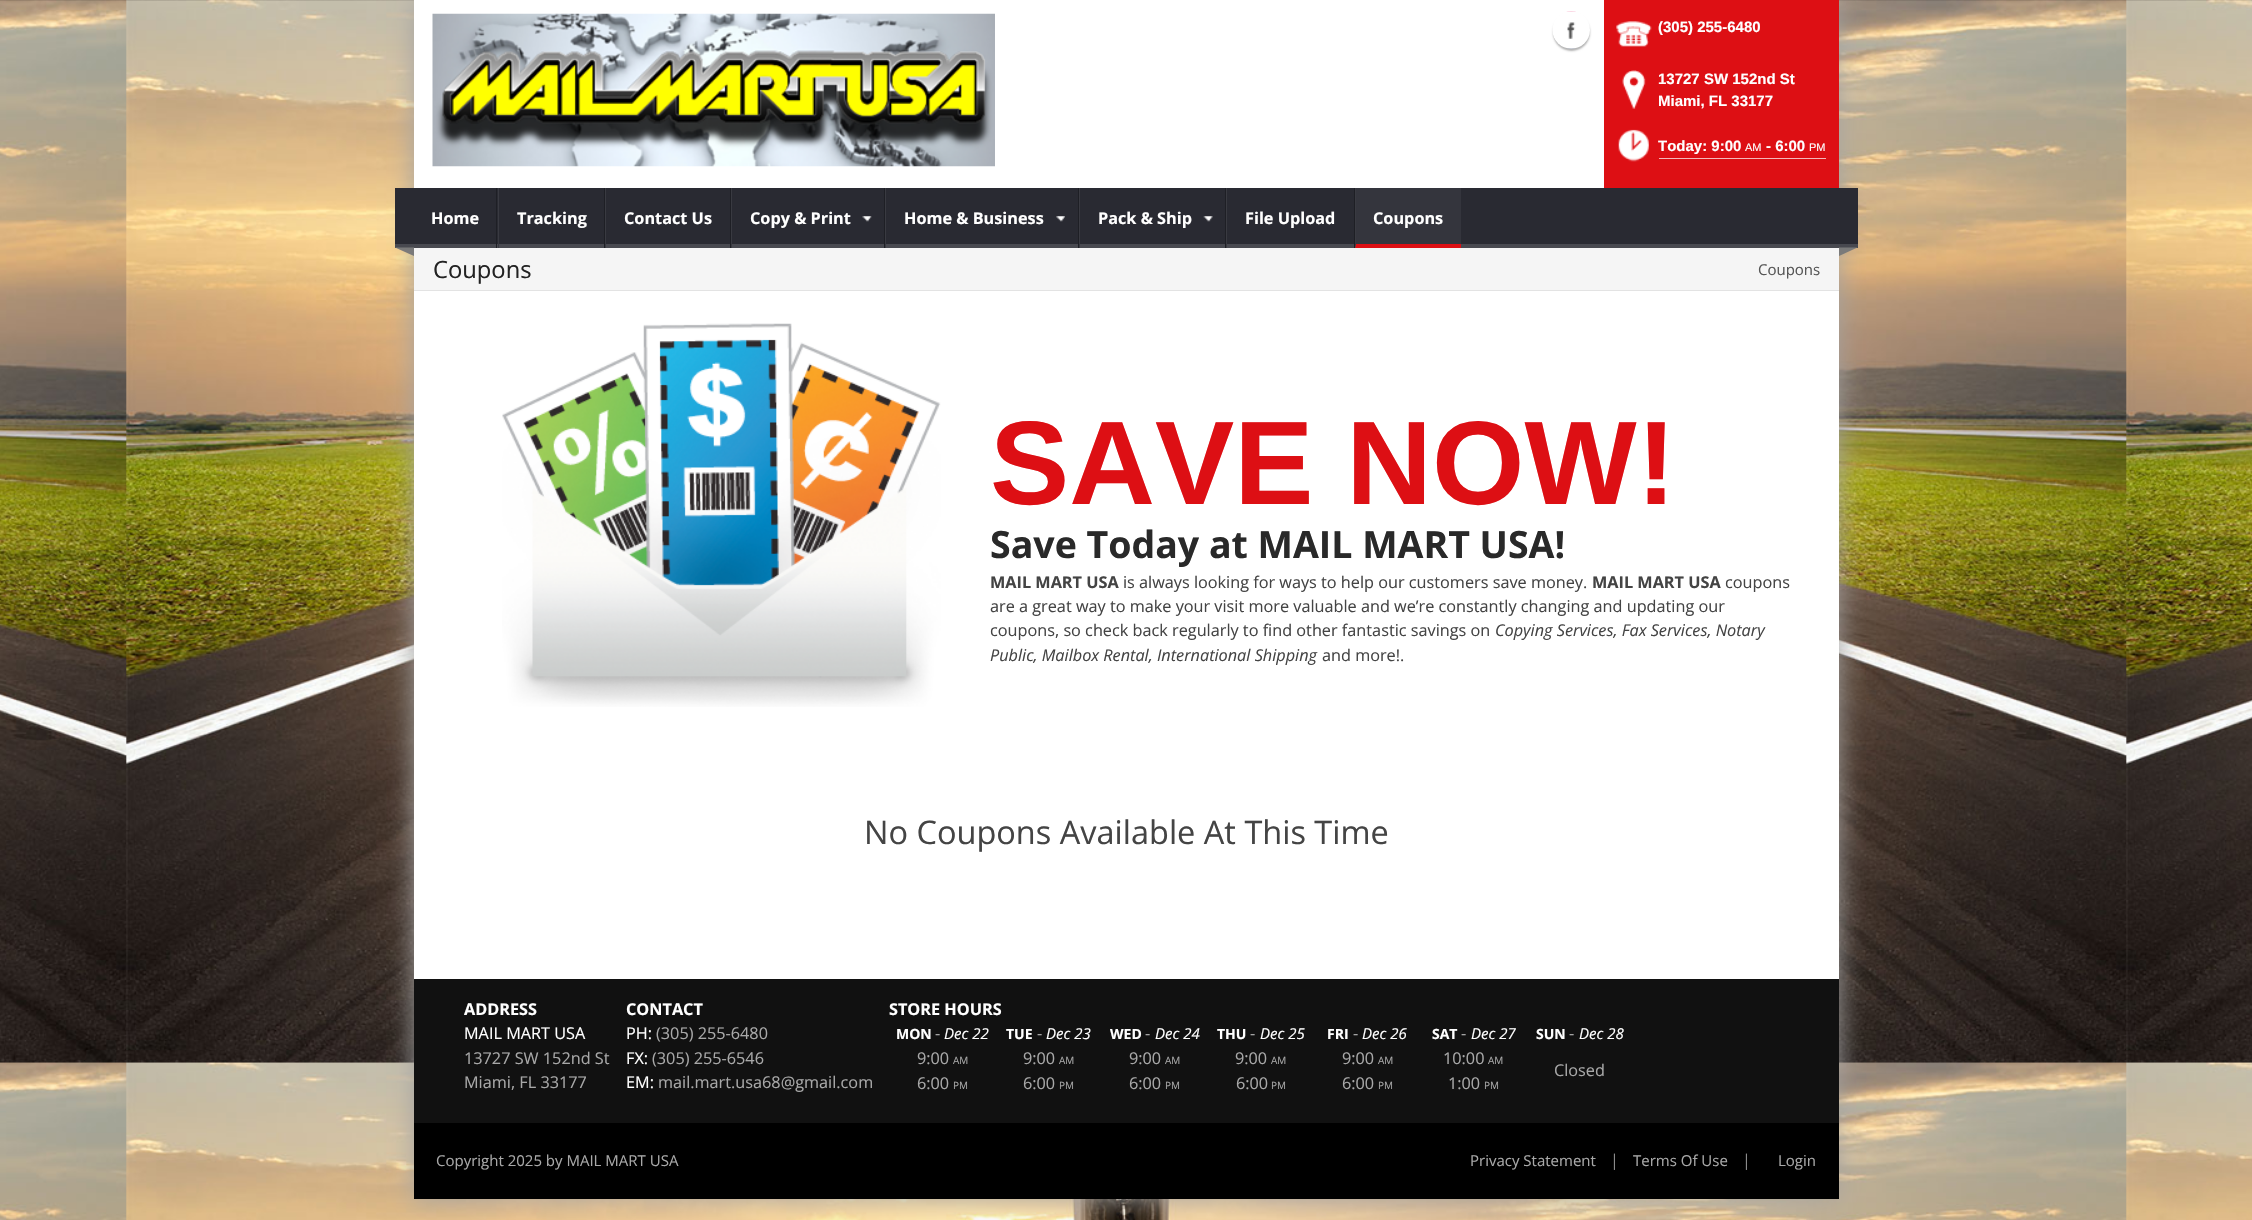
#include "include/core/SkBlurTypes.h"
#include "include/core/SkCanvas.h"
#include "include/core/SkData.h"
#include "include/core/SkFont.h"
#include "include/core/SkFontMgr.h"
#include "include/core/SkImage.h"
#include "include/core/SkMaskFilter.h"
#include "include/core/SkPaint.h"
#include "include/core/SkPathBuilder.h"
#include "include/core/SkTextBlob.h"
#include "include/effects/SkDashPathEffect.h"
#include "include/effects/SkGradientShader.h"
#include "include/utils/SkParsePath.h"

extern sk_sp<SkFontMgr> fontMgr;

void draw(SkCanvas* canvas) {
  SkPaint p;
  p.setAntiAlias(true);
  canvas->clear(SK_ColorWHITE);
  canvas->drawImageRect(SkImages::DeferredFromEncodedData(SkData::MakeFromFileName("images/1.png")), SkRect::MakeLTRB(0, 0, 2252, 1220), SkSamplingOptions());
  p.setColor(SkColorSetRGB(163, 163, 163));
  p.setMaskFilter(SkMaskFilter::MakeBlur(kNormal_SkBlurStyle, 12.5f));
  canvas->drawRect(SkRect::MakeLTRB(414, 0, 1839, 1199), p);
  p.setMaskFilter(nullptr);
  p.setColor(SK_ColorWHITE);
  canvas->drawRect(SkRect::MakeLTRB(414, 0, 1839, 979), p);
  canvas->drawImageRect(SkImages::DeferredFromEncodedData(SkData::MakeFromFileName("images/2.png")), SkRect::MakeLTRB(432, 13, 995, 167), SkSamplingOptions());
  p.setColor(SkColorSetARGB(77, 0, 0, 0));
  p.setMaskFilter(SkMaskFilter::MakeBlur(kNormal_SkBlurStyle, 1));
  canvas->drawRoundRect(SkRect::MakeLTRB(1553, 14, 1590, 51), 18.5f, 18.5f, p);
  p.setMaskFilter(nullptr);
  canvas->drawImageRect(SkImages::DeferredFromEncodedData(SkData::MakeFromFileName("images/3.png")), SkRect::MakeLTRB(1552, 11, 1590, 49), SkSamplingOptions());
  p.setColor(SkColorSetRGB(221, 15, 20));
  canvas->drawRect(SkRect::MakeLTRB(1604, 0, 1839, 188), p);
  canvas->drawImageRect(SkImages::DeferredFromEncodedData(SkData::MakeFromFileName("images/4.png")), SkRect::MakeLTRB(1616, 21, 1652, 47), SkSamplingOptions());
  canvas->drawImageRect(SkImages::DeferredFromEncodedData(SkData::MakeFromFileName("images/5.png")), SkRect::MakeLTRB(1622, 70, 1646, 109), SkSamplingOptions());
  canvas->drawImageRect(SkImages::DeferredFromEncodedData(SkData::MakeFromFileName("images/6.png")), SkRect::MakeLTRB(1618, 129, 1649, 162), SkSamplingOptions());
  p.setColor(SkColorSetRGB(245, 183, 185));
  canvas->drawRect(SkRect::MakeLTRB(1659, 158, 1826, 159), p);
  p.setColor(SkColorSetRGB(41, 42, 50));
  canvas->drawRect(SkRect::MakeLTRB(395, 188, 1858, 244), p);
  p.setColor(SkColorSetRGB(72, 73, 80));
  canvas->drawRect(SkRect::MakeLTRB(395, 244, 1858, 248), p);
  p.setColor(SkColorSetRGB(30, 31, 37));
  canvas->drawRect(SkRect::MakeLTRB(496, 188, 497, 248), p);
  canvas->drawRect(SkRect::MakeLTRB(604, 188, 605, 248), p);
  p.setColor(SkColorSetRGB(57, 58, 65));
  canvas->drawRect(SkRect::MakeLTRB(498, 188, 499, 248), p);
  p.setColor(SkColorSetRGB(30, 31, 37));
  canvas->drawRect(SkRect::MakeLTRB(730, 188, 731, 248), p);
  p.setColor(SkColorSetRGB(57, 58, 65));
  canvas->drawRect(SkRect::MakeLTRB(605, 188, 606, 248), p);
  p.setColor(SkColorSetRGB(30, 31, 37));
  canvas->drawRect(SkRect::MakeLTRB(884, 188, 885, 248), p);
  p.setColor(SkColorSetRGB(57, 58, 65));
  canvas->drawRect(SkRect::MakeLTRB(731, 188, 732, 248), p);
  canvas->drawImageRect(SkImages::DeferredFromEncodedData(SkData::MakeFromFileName("images/7.png")), SkRect::MakeLTRB(862, 216, 872, 222), SkSamplingOptions());
  p.setColor(SkColorSetRGB(30, 31, 37));
  canvas->drawRect(SkRect::MakeLTRB(1078, 188, 1079, 248), p);
  p.setColor(SkColorSetRGB(57, 58, 65));
  canvas->drawRect(SkRect::MakeLTRB(885, 188, 886, 248), p);
  canvas->drawImageRect(SkImages::DeferredFromEncodedData(SkData::MakeFromFileName("images/8.png")), SkRect::MakeLTRB(1056, 216, 1065, 222), SkSamplingOptions());
  p.setColor(SkColorSetRGB(30, 31, 37));
  canvas->drawRect(SkRect::MakeLTRB(1225, 188, 1226, 248), p);
  p.setColor(SkColorSetRGB(57, 58, 65));
  canvas->drawRect(SkRect::MakeLTRB(1079, 188, 1080, 248), p);
  canvas->drawImageRect(SkImages::DeferredFromEncodedData(SkData::MakeFromFileName("images/9.png")), SkRect::MakeLTRB(1203, 216, 1213, 222), SkSamplingOptions());
  p.setColor(SkColorSetRGB(30, 31, 37));
  canvas->drawRect(SkRect::MakeLTRB(1354, 188, 1355, 248), p);
  p.setColor(SkColorSetRGB(57, 58, 65));
  canvas->drawRect(SkRect::MakeLTRB(1226, 188, 1227, 248), p);
  p.setColor(SkColorSetARGB(13, 255, 255, 255));
  canvas->drawRect(SkRect::MakeLTRB(1355, 188, 1461, 248), p);
  p.setColor(SkColorSetRGB(221, 15, 20));
  canvas->drawPath(SkPathBuilder().moveTo(1461, 248).lineTo(1355, 248).lineTo(1356, 244).lineTo(1461, 244).close().detach(), p);
  p.setColor(SkColorSetRGB(57, 58, 65));
  canvas->drawPath(SkPathBuilder().moveTo(1355, 248).lineTo(1355, 188).lineTo(1356, 188).lineTo(1356, 244).close().detach(), p);
  p.setColor(SkColorSetRGB(122, 122, 122));
  canvas->drawPath(SkPathBuilder().moveTo(414, 247.5f).lineTo(414, 256).lineTo(395, 247.5f).close().detach(), p);
  canvas->drawPath(SkPathBuilder().moveTo(1839, 247.5f).lineTo(1857.5f, 247.5f).lineTo(1839, 256).close().detach(), p);
  p.setColor(SkColorSetRGB(245, 245, 245));
  canvas->drawRect(SkRect::MakeLTRB(414, 248, 1839, 290), p);
  p.setColor(SkColorSetRGB(227, 227, 227));
  canvas->drawRect(SkRect::MakeLTRB(414, 290, 1839, 291), p);
  canvas->drawImageRect(SkImages::DeferredFromEncodedData(SkData::MakeFromFileName("images/10.png")), SkRect::MakeLTRB(502, 323, 941, 707), SkSamplingOptions());
  p.setColor(SkColorSetRGB(17, 17, 17));
  canvas->drawRect(SkRect::MakeLTRB(414, 979, 1839, 1123), p);
  p.setColor(SK_ColorBLACK);
  canvas->drawRect(SkRect::MakeLTRB(414, 1123, 1839, 1199), p);
  SkFont font1(fontMgr->matchFamilyStyle("Liberation Sans", SkFontStyle::Bold()), 15);
  font1.setSubpixel(true);
  p.setColor(SK_ColorWHITE);
  canvas->drawString("(305) 255-6480", 1658, 32, font1, p);
  canvas->drawString("13727 SW 152nd St", 1658, 84, font1, p);
  canvas->drawString("Miami, FL 33177", 1658, 106, font1, p);
  canvas->drawString("Today: 9:00", 1658, 151, font1, p);
  SkFont font2(fontMgr->matchFamilyStyle("Liberation Sans", SkFontStyle::Normal()), 11);
  font2.setSubpixel(true);
  canvas->drawString("AM", 1745, 151, font2, p);
  canvas->drawString("- 6:00", 1766, 151, font1, p);
  canvas->drawString("PM", 1809, 151, font2, p);
  SkFont font3(fontMgr->matchFamilyStyle("Open Sans", SkFontStyle::Bold()), 16.25f);
  font3.setSubpixel(true);
  canvas->drawString("Home", 431, 224, font3, p);
  canvas->drawString("Tracking", 517, 224, font3, p);
  canvas->drawString("Contact Us", 624, 224, font3, p);
  canvas->drawString("Copy & Print", 750, 224, font3, p);
  canvas->drawString("Home & Business", 904, 224, font3, p);
  canvas->drawString("Pack & Ship", 1098, 224, font3, p);
  canvas->drawString("File Upload", 1245, 224, font3, p);
  canvas->drawString("Coupons", 1373, 224, font3, p);
  SkFont font4(fontMgr->matchFamilyStyle("Open Sans", SkFontStyle::Normal()), 23.75f);
  font4.setSubpixel(true);
  p.setColor(SkColorSetRGB(34, 34, 34));
  canvas->drawString("Coupons", 433, 278, font4, p);
  SkFont font5(fontMgr->matchFamilyStyle("Open Sans", SkFontStyle::Normal()), 15);
  font5.setSubpixel(true);
  p.setColor(SkColorSetRGB(85, 85, 85));
  canvas->drawString("Coupons", 1758, 275, font5, p);
  SkFont font6(fontMgr->matchFamilyStyle("Liberation Sans", SkFontStyle::Bold()), 118.75f);
  font6.setSubpixel(true);
  p.setColor(SkColorSetRGB(221, 15, 20));
  canvas->drawString("SAVE NOW!", 990, 504, font6, p);
  SkFont font7(fontMgr->matchFamilyStyle("Open Sans", SkFontStyle::Bold()), 37.5f);
  font7.setSubpixel(true);
  p.setColor(SkColorSetRGB(41, 41, 41));
  canvas->drawString("Save Today at MAIL MART USA!", 990, 558, font7, p);
  p.setColor(SkColorSetRGB(68, 68, 68));
  canvas->drawString("MAIL MART USA", 990, 588, font3, p);
  SkFont font8(fontMgr->matchFamilyStyle("Open Sans", SkFontStyle::Normal()), 16.25f);
  font8.setSubpixel(true);
  canvas->drawString("is always looking for ways to help our customers save money.", 1123, 588, font8, p);
  canvas->drawString("MAIL MART USA", 1592, 588, font3, p);
  canvas->drawString("coupons", 1725, 588, font8, p);
  canvas->drawString("are a great way to make your visit more valuable and we’re constantly changing and updating our", 990, 612, font8, p);
  canvas->drawString("coupons, so check back regularly to find other fantastic savings on", 990, 636, font8, p);
  SkFont font9(fontMgr->matchFamilyStyle("Open Sans", SkFontStyle::Italic()), 16.25f);
  font9.setSubpixel(true);
  canvas->drawString("Copying Services, Fax Services, Notary", 1495, 636, font9, p);
  canvas->drawString("Public, Mailbox Rental, International Shipping", 990, 661, font9, p);
  canvas->drawString("and more!.", 1322, 661, font8, p);
  SkFont font10(fontMgr->matchFamilyStyle("Open Sans", SkFontStyle::Normal()), 32.5f);
  font10.setSubpixel(true);
  canvas->drawString("No Coupons Available At This Time", 864, 844, font10, p);
  p.setColor(SK_ColorWHITE);
  canvas->drawString("ADDRESS", 464, 1015, font3, p);
  canvas->drawString("MAIL MART USA", 464, 1039, font8, p);
  p.setColor(SkColorSetRGB(168, 168, 168));
  canvas->drawString("13727 SW 152nd St", 464, 1064, font8, p);
  canvas->drawString("Miami, FL 33177", 464, 1088, font8, p);
  p.setColor(SK_ColorWHITE);
  canvas->drawString("CONTACT", 626, 1015, font3, p);
  canvas->drawString("PH:", 626, 1039, font8, p);
  p.setColor(SkColorSetRGB(168, 168, 168));
  canvas->drawString("(305) 255-6480", 656, 1039, font8, p);
  p.setColor(SK_ColorWHITE);
  canvas->drawString("FX:", 626, 1064, font8, p);
  p.setColor(SkColorSetRGB(168, 168, 168));
  canvas->drawString("(305) 255-6546", 652, 1064, font8, p);
  p.setColor(SK_ColorWHITE);
  canvas->drawString("EM:", 626, 1088, font8, p);
  p.setColor(SkColorSetRGB(168, 168, 168));
  canvas->drawString("mail.mart.usa68@gmail.com", 658, 1088, font8, p);
  p.setColor(SK_ColorWHITE);
  canvas->drawString("STORE HOURS", 889, 1015, font3, p);
  SkFont font11(fontMgr->matchFamilyStyle("Open Sans", SkFontStyle::Bold()), 14);
  font11.setSubpixel(true);
  canvas->drawString("MON", 896, 1039, font11, p);
  p.setColor(SkColorSetRGB(168, 168, 168));
  canvas->drawString("-", 935, 1039, font8, p);
  SkFont font12(fontMgr->matchFamilyStyle("Open Sans", SkFontStyle::Italic()), 15);
  font12.setSubpixel(true);
  p.setColor(SK_ColorWHITE);
  canvas->drawString("Dec 22", 944, 1039, font12, p);
  p.setColor(SkColorSetRGB(168, 168, 168));
  canvas->drawString("9:00", 917, 1064, font8, p);
  SkFont font13(fontMgr->matchFamilyStyle("Open Sans", SkFontStyle::Normal()), 10);
  font13.setSubpixel(true);
  canvas->drawString("AM", 953, 1064, font13, p);
  canvas->drawString("6:00", 917, 1089, font8, p);
  canvas->drawString("PM", 953, 1089, font13, p);
  p.setColor(SK_ColorWHITE);
  canvas->drawString("TUE", 1006, 1039, font11, p);
  p.setColor(SkColorSetRGB(168, 168, 168));
  canvas->drawString("-", 1037, 1039, font8, p);
  p.setColor(SK_ColorWHITE);
  canvas->drawString("Dec 23", 1046, 1039, font12, p);
  p.setColor(SkColorSetRGB(168, 168, 168));
  canvas->drawString("9:00", 1023, 1064, font8, p);
  canvas->drawString("AM", 1059, 1064, font13, p);
  canvas->drawString("6:00", 1023, 1089, font8, p);
  canvas->drawString("PM", 1059, 1089, font13, p);
  p.setColor(SK_ColorWHITE);
  canvas->drawString("WED", 1110, 1039, font11, p);
  p.setColor(SkColorSetRGB(168, 168, 168));
  canvas->drawString("-", 1145, 1039, font8, p);
  p.setColor(SK_ColorWHITE);
  canvas->drawString("Dec 24", 1155, 1039, font12, p);
  p.setColor(SkColorSetRGB(168, 168, 168));
  canvas->drawString("9:00", 1129, 1064, font8, p);
  canvas->drawString("AM", 1165, 1064, font13, p);
  canvas->drawString("6:00", 1129, 1089, font8, p);
  canvas->drawString("PM", 1165, 1089, font13, p);
  p.setColor(SK_ColorWHITE);
  canvas->drawString("THU", 1217, 1039, font11, p);
  p.setColor(SkColorSetRGB(168, 168, 168));
  canvas->drawString("-", 1250, 1039, font8, p);
  p.setColor(SK_ColorWHITE);
  canvas->drawString("Dec 25", 1260, 1039, font12, p);
  p.setColor(SkColorSetRGB(168, 168, 168));
  canvas->drawString("9:00", 1235, 1064, font8, p);
  canvas->drawString("AM", 1271, 1064, font13, p);
  canvas->drawString("6:00", 1236, 1089, font8, p);
  canvas->drawString("PM", 1271, 1089, font13, p);
  p.setColor(SK_ColorWHITE);
  canvas->drawString("FRI", 1327, 1039, font11, p);
  p.setColor(SkColorSetRGB(168, 168, 168));
  canvas->drawString("-", 1353, 1039, font8, p);
  p.setColor(SK_ColorWHITE);
  canvas->drawString("Dec 26", 1362, 1039, font12, p);
  p.setColor(SkColorSetRGB(168, 168, 168));
  canvas->drawString("9:00", 1342, 1064, font8, p);
  canvas->drawString("AM", 1378, 1064, font13, p);
  canvas->drawString("6:00", 1342, 1089, font8, p);
  canvas->drawString("PM", 1378, 1089, font13, p);
  p.setColor(SK_ColorWHITE);
  canvas->drawString("SAT", 1432, 1039, font11, p);
  p.setColor(SkColorSetRGB(168, 168, 168));
  canvas->drawString("-", 1461, 1039, font8, p);
  p.setColor(SK_ColorWHITE);
  canvas->drawString("Dec 27", 1471, 1039, font12, p);
  p.setColor(SkColorSetRGB(168, 168, 168));
  canvas->drawString("10:00", 1443, 1064, font8, p);
  canvas->drawString("AM", 1488, 1064, font13, p);
  canvas->drawString("1:00", 1448, 1089, font8, p);
  canvas->drawString("PM", 1484, 1089, font13, p);
  p.setColor(SK_ColorWHITE);
  canvas->drawString("SUN", 1536, 1039, font11, p);
  p.setColor(SkColorSetRGB(168, 168, 168));
  canvas->drawString("-", 1569, 1039, font8, p);
  p.setColor(SK_ColorWHITE);
  canvas->drawString("Dec 28", 1579, 1039, font12, p);
  p.setColor(SkColorSetRGB(168, 168, 168));
  canvas->drawString("Closed", 1554, 1076, font8, p);
  canvas->drawString("Copyright 2025 by MAIL MART USA", 436, 1166, font5, p);
  canvas->drawString("Privacy Statement", 1470, 1166, font5, p);
  p.setColor(SkColorSetRGB(138, 138, 138));
  canvas->drawString("|", 1610, 1166, font8, p);
  p.setColor(SkColorSetRGB(168, 168, 168));
  canvas->drawString("Terms Of Use", 1633, 1166, font5, p);
  p.setColor(SkColorSetRGB(138, 138, 138));
  canvas->drawString("|", 1742, 1166, font8, p);
  p.setColor(SkColorSetRGB(168, 168, 168));
  canvas->drawString("Login", 1778, 1166, font5, p);
}
